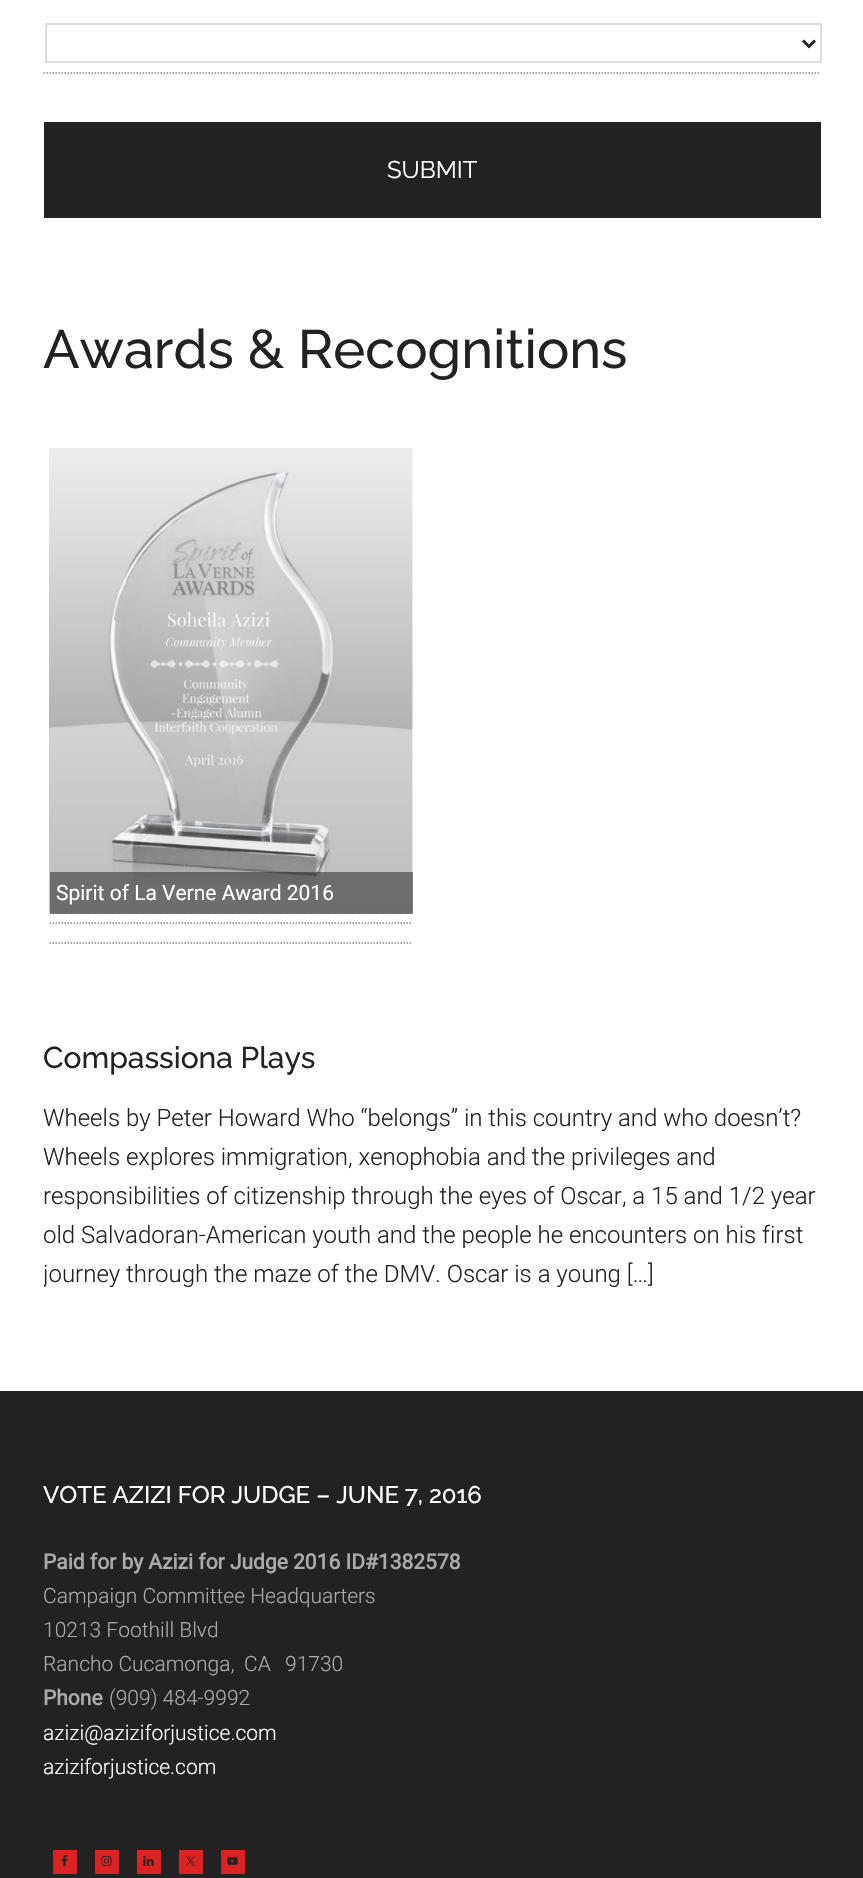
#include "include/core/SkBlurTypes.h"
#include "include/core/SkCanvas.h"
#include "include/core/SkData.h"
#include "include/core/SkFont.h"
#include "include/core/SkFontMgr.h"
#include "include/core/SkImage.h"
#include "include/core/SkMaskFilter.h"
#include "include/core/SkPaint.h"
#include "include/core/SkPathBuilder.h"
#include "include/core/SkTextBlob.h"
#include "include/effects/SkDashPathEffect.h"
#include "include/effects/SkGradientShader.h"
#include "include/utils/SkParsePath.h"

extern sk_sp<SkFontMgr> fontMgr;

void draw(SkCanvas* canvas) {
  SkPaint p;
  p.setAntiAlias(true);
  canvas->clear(SK_ColorWHITE);
  p.setStyle(SkPaint::kStroke_Style);
  p.setStrokeWidth(1.5f);
  p.setColor(SkColorSetRGB(136, 136, 136));
  p.setPathEffect(SkDashPathEffect::Make({{1.5f, 1.5f}}, 0));
  canvas->drawPath(SkPathBuilder().moveTo(43.5f, 73).lineTo(820.5f, 73).detach(), p);
  p.setPathEffect(nullptr);
  p.setStrokeWidth(2);
  p.setColor(SkColorSetRGB(221, 221, 221));
  canvas->drawRect(SkRect::MakeLTRB(46, 24, 821, 62), p);
  p.setStrokeWidth(3);
  p.setColor(SkColorSetRGB(34, 34, 34));
  canvas->drawPath(SkPathBuilder().moveTo(803, 40.5f).lineTo(809, 46.5f).lineTo(815, 40.5f).detach(), p);
  p.setStyle(SkPaint::kFill_Style);
  canvas->drawRect(SkRect::MakeLTRB(44, 122, 821, 218), p);
  canvas->save();
  canvas->clipRect(SkRect::MakeLTRB(50, 449, 413, 914));
  p.setStyle(SkPaint::kStroke_Style);
  p.setStrokeWidth(1.5f);
  p.setColor(SkColorSetRGB(136, 136, 136));
  p.setPathEffect(SkDashPathEffect::Make({{1.5f, 1.5f}}, 0));
  canvas->drawPath(SkPathBuilder().moveTo(49.5f, 914).lineTo(412.5f, 914).detach(), p);
  p.setPathEffect(nullptr);
  canvas->restore();
  canvas->drawImageRect(SkImages::DeferredFromEncodedData(SkData::MakeFromFileName("images/1.png")), SkRect::MakeLTRB(49, 448, 413, 913), SkSamplingOptions());
  p.setStyle(SkPaint::kFill_Style);
  p.setColor(SkColorSetARGB(135, 36, 36, 36));
  canvas->drawRect(SkRect::MakeLTRB(50, 872, 413, 914), p);
  p.setStyle(SkPaint::kStroke_Style);
  p.setColor(SkColorSetRGB(136, 136, 136));
  p.setPathEffect(SkDashPathEffect::Make({{1.5f, 1.5f}}, 0));
  canvas->drawPath(SkPathBuilder().moveTo(49.5f, 923).lineTo(412.5f, 923).detach(), p);
  p.setPathEffect(nullptr);
  p.setPathEffect(SkDashPathEffect::Make({{1.5f, 1.5f}}, 0));
  canvas->drawPath(SkPathBuilder().moveTo(49.5f, 943).lineTo(412.5f, 943).detach(), p);
  p.setPathEffect(nullptr);
  p.setStyle(SkPaint::kFill_Style);
  p.setColor(SkColorSetRGB(34, 34, 34));
  canvas->drawRect(SkRect::MakeLTRB(0, 1391, 863, 1878), p);
  p.setColor(SkColorSetRGB(219, 35, 35));
  canvas->drawRect(SkRect::MakeLTRB(53, 1850, 77, 1874), p);
  canvas->drawImageRect(SkImages::DeferredFromEncodedData(SkData::MakeFromFileName("images/2.png")), SkRect::MakeLTRB(61, 1855, 68, 1867), SkSamplingOptions());
  canvas->drawRect(SkRect::MakeLTRB(95, 1850, 119, 1874), p);
  canvas->drawImageRect(SkImages::DeferredFromEncodedData(SkData::MakeFromFileName("images/3.png")), SkRect::MakeLTRB(101, 1856, 112, 1866), SkSamplingOptions());
  canvas->drawRect(SkRect::MakeLTRB(137, 1850, 161, 1874), p);
  canvas->drawImageRect(SkImages::DeferredFromEncodedData(SkData::MakeFromFileName("images/4.png")), SkRect::MakeLTRB(143, 1856, 154, 1866), SkSamplingOptions());
  canvas->drawRect(SkRect::MakeLTRB(179, 1850, 203, 1874), p);
  canvas->drawImageRect(SkImages::DeferredFromEncodedData(SkData::MakeFromFileName("images/5.png")), SkRect::MakeLTRB(186, 1856, 195, 1866), SkSamplingOptions());
  canvas->drawRect(SkRect::MakeLTRB(221, 1850, 245, 1874), p);
  canvas->drawImageRect(SkImages::DeferredFromEncodedData(SkData::MakeFromFileName("images/6.png")), SkRect::MakeLTRB(227, 1857, 238, 1865), SkSamplingOptions());
  SkFont font1(fontMgr->matchFamilyStyle("Raleway", SkFontStyle::Normal()), 24);
  font1.setSubpixel(true);
  p.setColor(SK_ColorWHITE);
  canvas->drawString("SUBMIT", 387, 178, font1, p);
  SkFont font2(fontMgr->matchFamilyStyle("Raleway", SkFontStyle(500, SkFontStyle::kNormal_Width, SkFontStyle::kUpright_Slant)), 54);
  font2.setSubpixel(true);
  p.setColor(SkColorSetRGB(34, 34, 34));
  canvas->drawString("Awards & Recognitions", 43, 368, font2, p);
  SkFont font3(fontMgr->matchFamilyStyle("Roboto", SkFontStyle::Normal()), 21);
  font3.setSubpixel(true);
  p.setColor(SK_ColorWHITE);
  canvas->drawString("Spirit of La Verne Award 2016", 56, 900, font3, p);
  SkFont font4(fontMgr->matchFamilyStyle("Raleway", SkFontStyle(500, SkFontStyle::kNormal_Width, SkFontStyle::kUpright_Slant)), 30);
  font4.setSubpixel(true);
  p.setColor(SkColorSetRGB(34, 34, 34));
  canvas->drawString("Compassiona Plays", 43, 1068, font4, p);
  SkFont font5(fontMgr->matchFamilyStyle("Roboto", SkFontStyle(300, SkFontStyle::kNormal_Width, SkFontStyle::kUpright_Slant)), 24);
  font5.setSubpixel(true);
  canvas->drawString("Wheels by Peter Howard Who “belongs” in this country and who doesn’t?", 43, 1126, font5, p);
  canvas->drawString("Wheels explores immigration, xenophobia and the privileges and", 43, 1165, font5, p);
  canvas->drawString("responsibilities of citizenship through the eyes of Oscar, a 15 and 1/2 year", 43, 1204, font5, p);
  canvas->drawString("old Salvadoran-American youth and the people he encounters on his first", 43, 1243, font5, p);
  canvas->save();
  canvas->clipRect(SkRect::MakeLTRB(44, 1040, 821, 1331));
  canvas->drawString("journey through the maze of the DMV. Oscar is a young […]", 43, 1282, font5, p);
  canvas->restore();
  SkFont font6(fontMgr->matchFamilyStyle("Raleway", SkFontStyle(500, SkFontStyle::kNormal_Width, SkFontStyle::kUpright_Slant)), 24);
  font6.setSubpixel(true);
  p.setColor(SK_ColorWHITE);
  canvas->drawString("VOTE AZIZI FOR JUDGE – JUNE 7, 2016", 43, 1503, font6, p);
  SkFont font7(fontMgr->matchFamilyStyle("Roboto", SkFontStyle::Bold()), 21);
  font7.setSubpixel(true);
  p.setColor(SkColorSetRGB(170, 170, 170));
  canvas->drawString("Paid for by Azizi for Judge 2016 ID#1382578", 43, 1569, font7, p);
  SkFont font8(fontMgr->matchFamilyStyle("Roboto", SkFontStyle(300, SkFontStyle::kNormal_Width, SkFontStyle::kUpright_Slant)), 21);
  font8.setSubpixel(true);
  canvas->drawString("Campaign Committee Headquarters", 43, 1603, font8, p);
  canvas->drawString("10213 Foothill Blvd", 43, 1637, font8, p);
  canvas->drawString("Rancho Cucamonga,", 43, 1671, font8, p);
  canvas->drawString("CA", 244, 1671, font8, p);
  canvas->drawString("91730", 285, 1671, font8, p);
  canvas->drawString("Phone", 43, 1705, font7, p);
  canvas->drawString("(909) 484-9992", 109, 1705, font8, p);
  p.setColor(SK_ColorWHITE);
  canvas->drawString("azizi@aziziforjustice.com", 43, 1740, font8, p);
  canvas->drawString("aziziforjustice.com", 43, 1774, font8, p);
}
